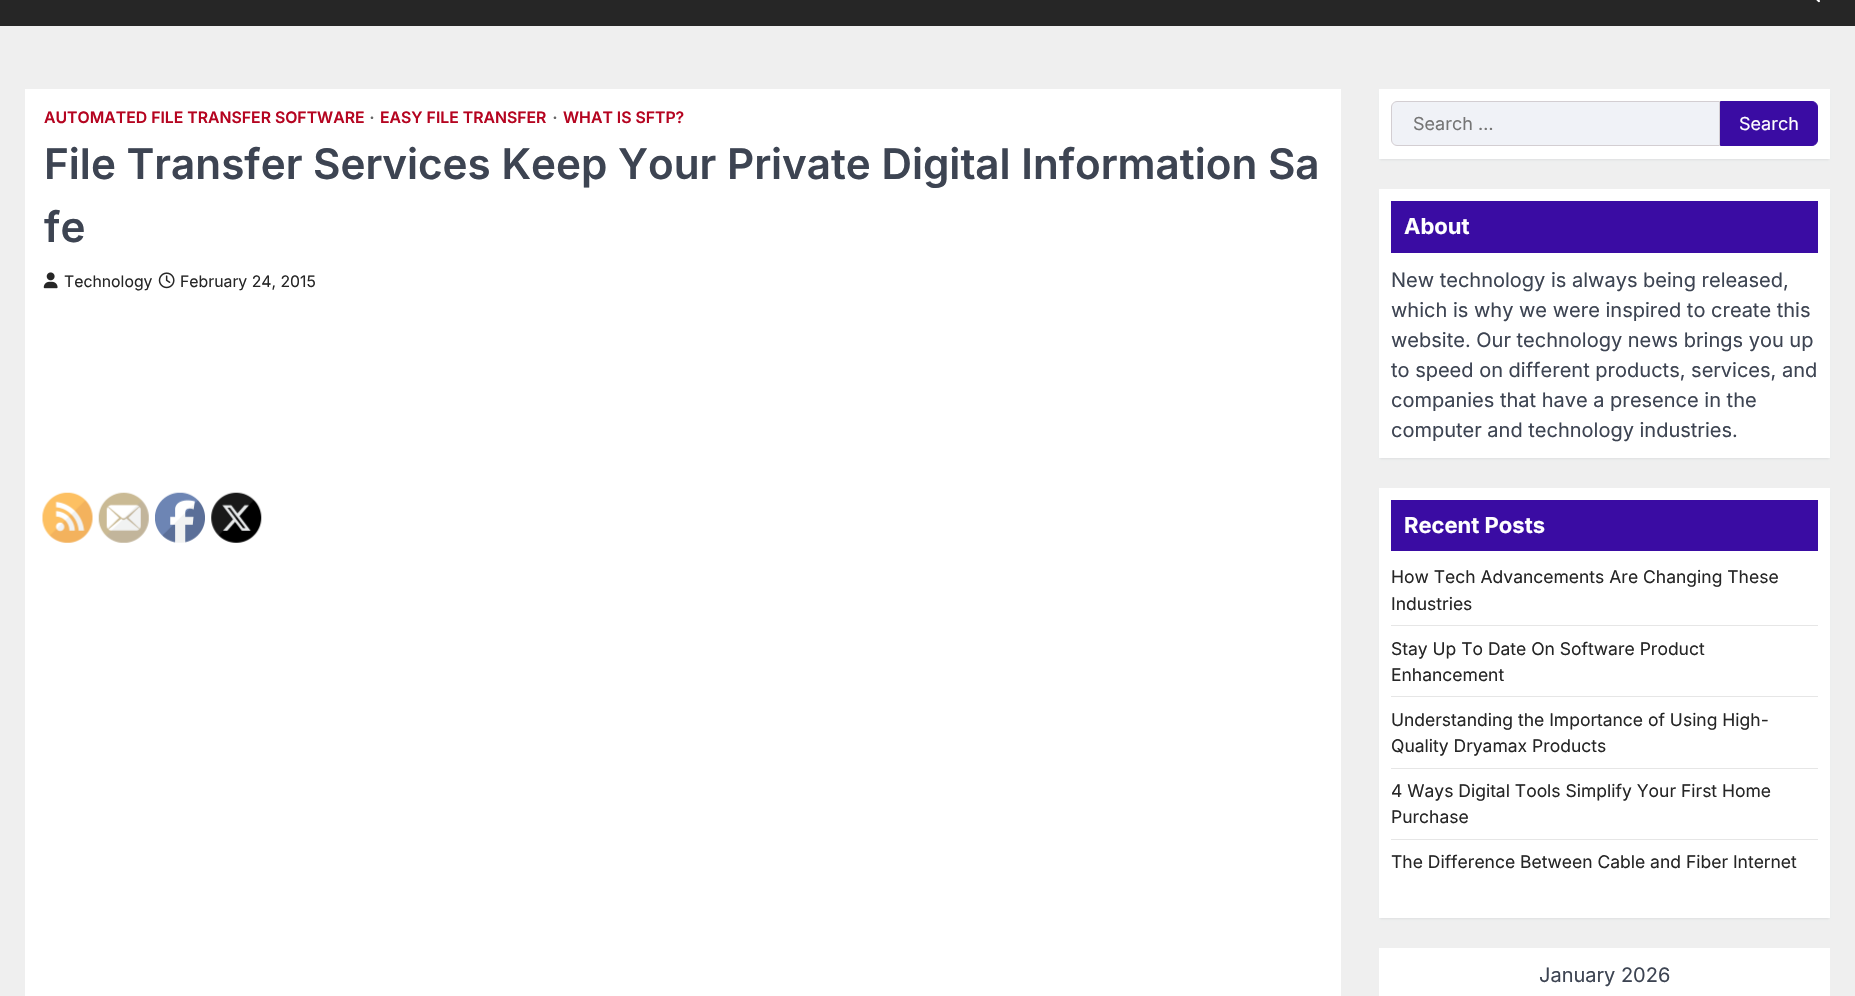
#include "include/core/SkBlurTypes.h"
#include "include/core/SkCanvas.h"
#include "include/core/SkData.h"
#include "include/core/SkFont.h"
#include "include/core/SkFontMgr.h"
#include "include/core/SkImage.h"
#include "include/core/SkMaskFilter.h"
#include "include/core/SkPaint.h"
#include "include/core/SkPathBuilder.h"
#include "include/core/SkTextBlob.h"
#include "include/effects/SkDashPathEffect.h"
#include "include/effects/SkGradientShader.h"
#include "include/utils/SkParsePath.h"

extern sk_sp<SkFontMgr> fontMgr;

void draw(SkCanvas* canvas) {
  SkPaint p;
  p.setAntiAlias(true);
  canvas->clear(SkColorSetRGB(239, 239, 239));
  p.setColor(SkColorSetRGB(38, 38, 38));
  canvas->drawRect(SkRect::MakeLTRB(0, 0, 1855, 26), p);
  canvas->drawImageRect(SkImages::DeferredFromEncodedData(SkData::MakeFromFileName("images/1.png")), SkRect::MakeLTRB(1816, 0, 1820, 3), SkSamplingOptions());
  p.setColor(SK_ColorWHITE);
  canvas->drawRect(SkRect::MakeLTRB(25, 89, 1341, 996), p);
  canvas->drawImageRect(SkImages::DeferredFromEncodedData(SkData::MakeFromFileName("images/2.png")), SkRect::MakeLTRB(43, 272, 58, 289), SkSamplingOptions());
  canvas->drawImageRect(SkImages::DeferredFromEncodedData(SkData::MakeFromFileName("images/3.png")), SkRect::MakeLTRB(158, 272, 175, 289), SkSamplingOptions());
  p.setColor(SkColorSetARGB(18, 7, 10, 25));
  p.setMaskFilter(SkMaskFilter::MakeBlur(kNormal_SkBlurStyle, 1));
  canvas->drawRect(SkRect::MakeLTRB(1380, 93, 1829, 160), p);
  p.setMaskFilter(nullptr);
  p.setColor(SK_ColorWHITE);
  canvas->drawRect(SkRect::MakeLTRB(1379, 89, 1830, 159), p);
  p.setColor(SkColorSetRGB(240, 242, 247));
  canvas->drawPath(SkPathBuilder().moveTo(1397, 101.5f).lineTo(1719.5f, 101.5f).lineTo(1719.5f, 145.5f).lineTo(1397, 145.5f).cubicTo(1394, 145.5f, 1391.5f, 143, 1391.5f, 140).lineTo(1391.5f, 107).cubicTo(1391.5f, 104, 1394, 101.5f, 1397, 101.5f).close().detach(), p);
  p.setStyle(SkPaint::kStroke_Style);
  p.setStrokeWidth(1);
  p.setColor(SkColorSetRGB(211, 206, 210));
  canvas->drawPath(SkPathBuilder().moveTo(1397, 101.5f).lineTo(1719.5f, 101.5f).lineTo(1719.5f, 145.5f).lineTo(1397, 145.5f).cubicTo(1394, 145.5f, 1391.5f, 143, 1391.5f, 140).lineTo(1391.5f, 107).cubicTo(1391.5f, 104, 1394, 101.5f, 1397, 101.5f).close().detach(), p);
  p.setStyle(SkPaint::kFill_Style);
  p.setColor(SkColorSetRGB(58, 12, 163));
  canvas->drawPath(SkPathBuilder().moveTo(1720.5f, 101.5f).lineTo(1812, 101.5f).cubicTo(1815, 101.5f, 1817.5f, 104, 1817.5f, 107).lineTo(1817.5f, 140).cubicTo(1817.5f, 143, 1815, 145.5f, 1812, 145.5f).lineTo(1720.5f, 145.5f).close().detach(), p);
  p.setStyle(SkPaint::kStroke_Style);
  canvas->drawPath(SkPathBuilder().moveTo(1720.5f, 101.5f).lineTo(1812, 101.5f).cubicTo(1815, 101.5f, 1817.5f, 104, 1817.5f, 107).lineTo(1817.5f, 140).cubicTo(1817.5f, 143, 1815, 145.5f, 1812, 145.5f).lineTo(1720.5f, 145.5f).close().detach(), p);
  p.setStyle(SkPaint::kFill_Style);
  p.setColor(SkColorSetARGB(18, 7, 10, 25));
  p.setMaskFilter(SkMaskFilter::MakeBlur(kNormal_SkBlurStyle, 1));
  canvas->drawRect(SkRect::MakeLTRB(1380, 193, 1829, 459), p);
  p.setMaskFilter(nullptr);
  p.setColor(SK_ColorWHITE);
  canvas->drawRect(SkRect::MakeLTRB(1379, 189, 1830, 458), p);
  p.setColor(SkColorSetRGB(58, 12, 163));
  canvas->drawRect(SkRect::MakeLTRB(1391, 201, 1818, 253), p);
  p.setColor(SkColorSetARGB(18, 7, 10, 25));
  p.setMaskFilter(SkMaskFilter::MakeBlur(kNormal_SkBlurStyle, 1));
  canvas->drawRect(SkRect::MakeLTRB(1380, 491, 1829, 919), p);
  p.setMaskFilter(nullptr);
  p.setColor(SK_ColorWHITE);
  canvas->drawRect(SkRect::MakeLTRB(1379, 488, 1830, 918), p);
  p.setColor(SkColorSetRGB(58, 12, 163));
  canvas->drawRect(SkRect::MakeLTRB(1391, 500, 1818, 551), p);
  p.setColor(SkColorSetRGB(230, 230, 230));
  canvas->drawRect(SkRect::MakeLTRB(1391, 625, 1818, 626), p);
  canvas->drawRect(SkRect::MakeLTRB(1391, 696, 1818, 697), p);
  canvas->drawRect(SkRect::MakeLTRB(1391, 768, 1818, 769), p);
  canvas->drawRect(SkRect::MakeLTRB(1391, 839, 1818, 840), p);
  p.setColor(SK_ColorWHITE);
  canvas->drawRect(SkRect::MakeLTRB(1379, 948, 1830, 996), p);
  canvas->drawImageRect(SkImages::DeferredFromEncodedData(SkData::MakeFromFileName("images/4.png")), SkRect::MakeLTRB(42, 492, 93, 543), SkSamplingOptions());
  canvas->drawImageRect(SkImages::DeferredFromEncodedData(SkData::MakeFromFileName("images/5.png")), SkRect::MakeLTRB(98, 492, 149, 543), SkSamplingOptions());
  canvas->drawImageRect(SkImages::DeferredFromEncodedData(SkData::MakeFromFileName("images/6.png")), SkRect::MakeLTRB(155, 492, 205, 543), SkSamplingOptions());
  canvas->drawImageRect(SkImages::DeferredFromEncodedData(SkData::MakeFromFileName("images/7.png")), SkRect::MakeLTRB(211, 492, 262, 543), SkSamplingOptions());
  SkFont font1(fontMgr->matchFamilyStyle("Inter", SkFontStyle(600, SkFontStyle::kNormal_Width, SkFontStyle::kUpright_Slant)), 15.8f);
  font1.setSubpixel(true);
  p.setColor(SkColorSetRGB(181, 4, 32));
  canvas->drawString("AUTOMATED FILE TRANSFER SOFTWARE", 44, 123, font1, p);
  SkFont font2(fontMgr->matchFamilyStyle("Liberation Serif", SkFontStyle::Bold()), 15.8f);
  font2.setSubpixel(true);
  p.setColor(SkColorSetRGB(103, 103, 103));
  canvas->drawString("∙", 370, 123, font2, p);
  p.setColor(SkColorSetRGB(181, 4, 32));
  canvas->drawString("EASY FILE TRANSFER", 380, 123, font1, p);
  p.setColor(SkColorSetRGB(103, 103, 103));
  canvas->drawString("∙", 553, 123, font2, p);
  p.setColor(SkColorSetRGB(181, 4, 32));
  canvas->drawString("WHAT IS SFTP?", 563, 123, font1, p);
  SkFont font3(fontMgr->matchFamilyStyle("Inter", SkFontStyle(600, SkFontStyle::kNormal_Width, SkFontStyle::kUpright_Slant)), 42.2f);
  font3.setSubpixel(true);
  p.setColor(SkColorSetRGB(61, 68, 82));
  canvas->drawString("File Transfer Services Keep Your Private Digital Information Sa", 44, 179, font3, p);
  canvas->drawString("fe", 44, 242, font3, p);
  SkFont font4(fontMgr->matchFamilyStyle("Inter", SkFontStyle::Normal()), 15.8f);
  font4.setSubpixel(true);
  p.setColor(SkColorSetRGB(38, 38, 38));
  canvas->drawString("Technology", 64, 287, font4, p);
  canvas->drawString("February 24, 2015", 180, 287, font4, p);
  SkFont font5(fontMgr->matchFamilyStyle("Inter", SkFontStyle::Normal()), 18);
  font5.setSubpixel(true);
  p.setColor(SkColorSetRGB(117, 117, 117));
  canvas->drawString("Search …", 1413, 130, font5, p);
  p.setColor(SK_ColorWHITE);
  canvas->drawString("Search", 1739, 130, font5, p);
  SkFont font6(fontMgr->matchFamilyStyle("Inter", SkFontStyle::Bold()), 22);
  font6.setSubpixel(true);
  canvas->drawString("About", 1404, 234, font6, p);
  SkFont font7(fontMgr->matchFamilyStyle("Inter", SkFontStyle::Normal()), 20);
  font7.setSubpixel(true);
  p.setColor(SkColorSetRGB(61, 68, 82));
  canvas->drawString("New technology is always being released,", 1391, 287, font7, p);
  canvas->drawString("which is why we were inspired to create this", 1391, 317, font7, p);
  canvas->drawString("website. Our technology news brings you up", 1391, 347, font7, p);
  canvas->drawString("to speed on different products, services, and", 1391, 377, font7, p);
  canvas->drawString("companies that have a presence in the", 1391, 407, font7, p);
  canvas->drawString("computer and technology industries.", 1391, 437, font7, p);
  p.setColor(SK_ColorWHITE);
  canvas->drawString("Recent Posts", 1404, 533, font6, p);
  SkFont font8(fontMgr->matchFamilyStyle("Inter", SkFontStyle::Normal()), 17.5f);
  font8.setSubpixel(true);
  p.setColor(SkColorSetRGB(38, 38, 38));
  canvas->drawString("How Tech Advancements Are Changing These", 1391, 583, font8, p);
  canvas->drawString("Industries", 1391, 610, font8, p);
  canvas->drawString("Stay Up To Date On Software Product", 1391, 655, font8, p);
  canvas->drawString("Enhancement", 1391, 681, font8, p);
  canvas->drawString("Understanding the Importance of Using High-", 1391, 726, font8, p);
  canvas->drawString("Quality Dryamax Products", 1391, 752, font8, p);
  canvas->drawString("4 Ways Digital Tools Simplify Your First Home", 1391, 797, font8, p);
  canvas->drawString("Purchase", 1391, 823, font8, p);
  canvas->drawString("The Difference Between Cable and Fiber Internet", 1391, 868, font8, p);
  p.setColor(SkColorSetRGB(61, 68, 82));
  canvas->drawString("January 2026", 1539, 982, font7, p);
}
